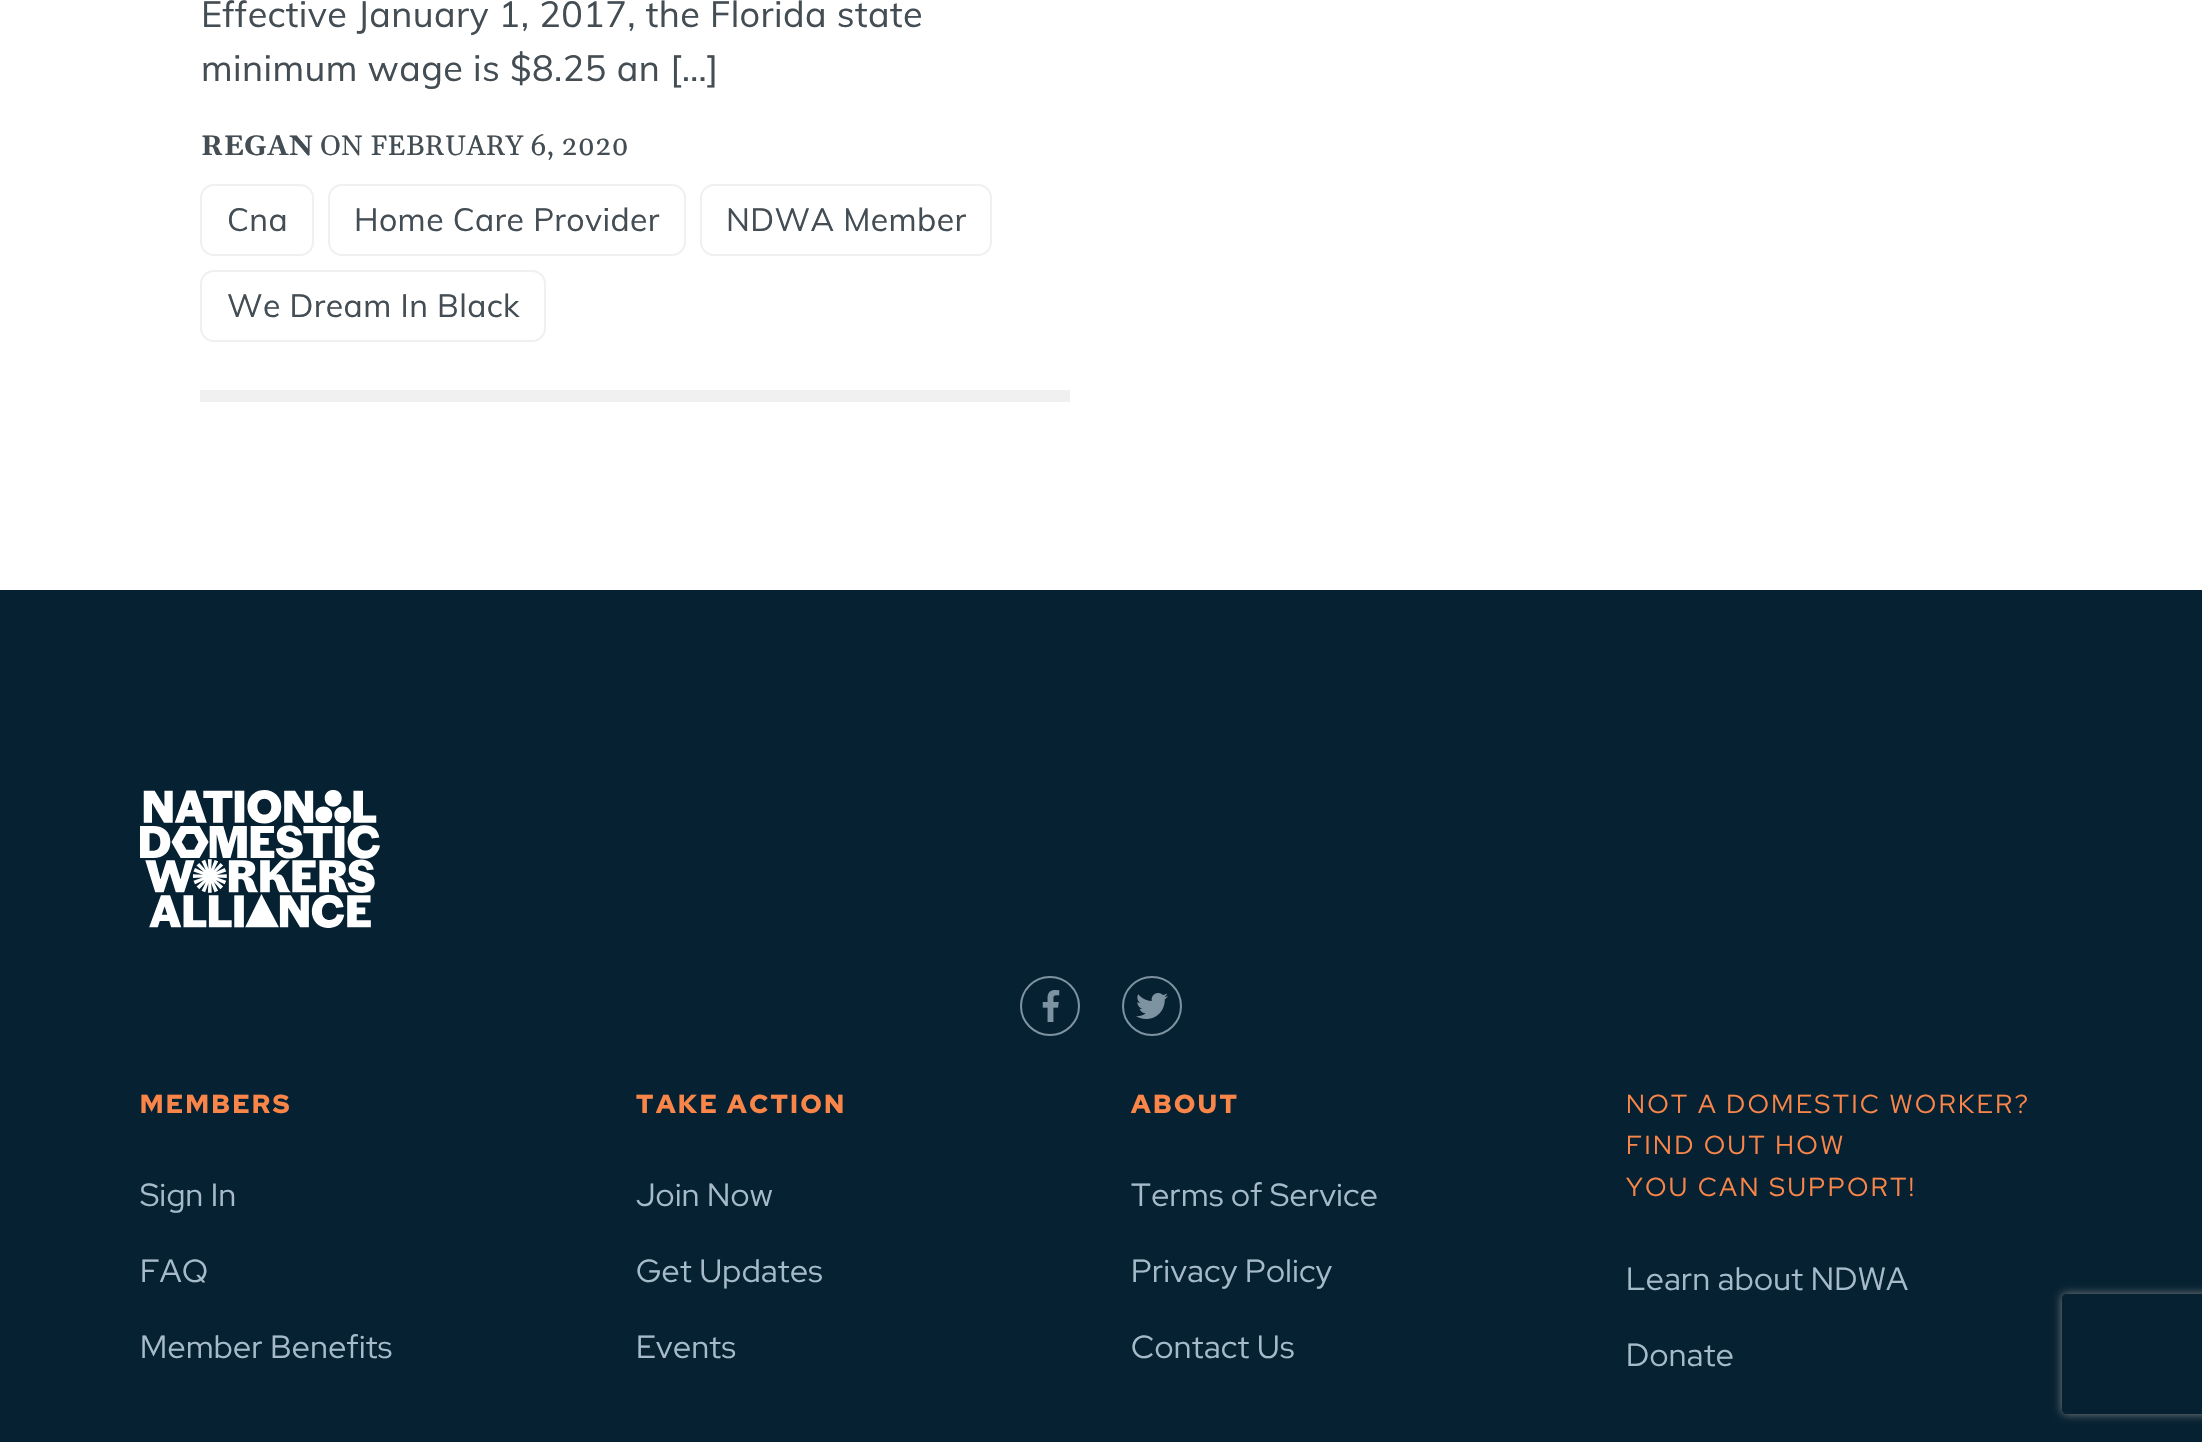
#include "include/core/SkBlurTypes.h"
#include "include/core/SkCanvas.h"
#include "include/core/SkData.h"
#include "include/core/SkFont.h"
#include "include/core/SkFontMgr.h"
#include "include/core/SkImage.h"
#include "include/core/SkMaskFilter.h"
#include "include/core/SkPaint.h"
#include "include/core/SkPathBuilder.h"
#include "include/core/SkTextBlob.h"
#include "include/effects/SkDashPathEffect.h"
#include "include/effects/SkGradientShader.h"
#include "include/utils/SkParsePath.h"

extern sk_sp<SkFontMgr> fontMgr;

void draw(SkCanvas* canvas) {
  SkPaint p;
  p.setAntiAlias(true);
  auto spacedText = [&](const char* s, float x, float y, const SkFont& font, const SkPaint& ink, float letter, float word) {
    std::vector<SkGlyphID> glyphs(font.countText(s, strlen(s), SkTextEncoding::kUTF8));
    std::vector<float> xs(glyphs.size());
    font.textToGlyphs(s, strlen(s), SkTextEncoding::kUTF8, glyphs);
    font.getXPos(glyphs, xs, x);
    float extra = 0;
    for (size_t i = 0; i < glyphs.size(); i++) {
      xs[i] += extra;
      extra += letter + word * (glyphs[i] == font.unicharToGlyph(' '));
    }
    canvas->drawTextBlob(SkTextBlob::MakeFromPosHGlyphs(glyphs, xs, y, font), 0, 0, ink);
  };
  canvas->clear(SK_ColorWHITE);
  p.setColor(SkColorSetRGB(240, 240, 241));
  canvas->drawRect(SkRect::MakeLTRB(200, 390, 1070, 402), p);
  p.setStyle(SkPaint::kStroke_Style);
  p.setStrokeWidth(2);
  canvas->drawRoundRect(SkRect::MakeLTRB(201, 185, 313, 255), 13, 13, p);
  canvas->drawRoundRect(SkRect::MakeLTRB(329, 185, 685, 255), 13, 13, p);
  canvas->drawRoundRect(SkRect::MakeLTRB(701, 185, 991, 255), 13, 13, p);
  canvas->drawRoundRect(SkRect::MakeLTRB(201, 271, 545, 341), 13, 13, p);
  p.setStyle(SkPaint::kFill_Style);
  p.setColor(SkColorSetRGB(6, 33, 50));
  canvas->drawRect(SkRect::MakeLTRB(0, 590, 2202, 1442), p);
  canvas->drawImageRect(SkImages::DeferredFromEncodedData(SkData::MakeFromFileName("images/1.png")), SkRect::MakeLTRB(140, 790, 380, 928), SkSamplingOptions());
  p.setStyle(SkPaint::kStroke_Style);
  p.setColor(SkColorSetRGB(126, 147, 161));
  canvas->drawCircle(1050, 1006, 29, p);
  canvas->drawImageRect(SkImages::DeferredFromEncodedData(SkData::MakeFromFileName("images/2.png")), SkRect::MakeLTRB(1042, 990, 1060, 1022), SkSamplingOptions());
  canvas->drawCircle(1152, 1006, 29, p);
  canvas->drawImageRect(SkImages::DeferredFromEncodedData(SkData::MakeFromFileName("images/3.png")), SkRect::MakeLTRB(1136, 993, 1168, 1019), SkSamplingOptions());
  canvas->save();
  canvas->clipPath(SkPathBuilder(SkPathFillType::kEvenOdd).moveTo(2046, 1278).lineTo(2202, 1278).lineTo(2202, 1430).lineTo(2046, 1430).close().moveTo(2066, 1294).lineTo(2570, 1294).cubicTo(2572, 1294, 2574, 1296, 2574, 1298).lineTo(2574, 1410).cubicTo(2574, 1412, 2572, 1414, 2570, 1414).lineTo(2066, 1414).cubicTo(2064, 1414, 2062, 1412, 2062, 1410).lineTo(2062, 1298).cubicTo(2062, 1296, 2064, 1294, 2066, 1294).close().detach(), true);
  p.setStyle(SkPaint::kFill_Style);
  p.setColor(SkColorSetRGB(128, 128, 128));
  p.setMaskFilter(SkMaskFilter::MakeBlur(kNormal_SkBlurStyle, 5));
  canvas->drawRoundRect(SkRect::MakeLTRB(2062, 1294, 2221, 1414), 4, 4, p);
  p.setMaskFilter(nullptr);
  canvas->restore();
  SkFont font1(fontMgr->matchFamilyStyle("Muli", SkFontStyle::Normal()), 36);
  font1.setSubpixel(true);
  p.setColor(SkColorSetRGB(67, 77, 83));
  spacedText("Effective January 1, 2017, the Florida state", 201, 27, font1, p, 0.4f, 0);
  spacedText("minimum wage is $8.25 an […]", 201, 81, font1, p, 0.4f, 0);
  SkFont font2(fontMgr->matchFamilyStyle("Gelasio", SkFontStyle::Bold()), 28);
  font2.setSubpixel(true);
  spacedText("REGAN", 201, 155, font2, p, 0.4f, 0);
  SkFont font3(fontMgr->matchFamilyStyle("Gelasio", SkFontStyle::Normal()), 28);
  font3.setSubpixel(true);
  spacedText("ON FEBRUARY 6, 2020", 320, 155, font3, p, 0.4f, 0);
  SkFont font4(fontMgr->matchFamilyStyle("Muli", SkFontStyle::Normal()), 32);
  font4.setSubpixel(true);
  spacedText("Cna", 227, 231, font4, p, 0.4f, 0);
  spacedText("Home Care Provider", 354, 231, font4, p, 0.4f, 0);
  spacedText("NDWA Member", 726, 231, font4, p, 0.4f, 0);
  spacedText("We Dream In Black", 227, 317, font4, p, 0.4f, 0);
  SkFont font5(fontMgr->matchFamilyStyle("Red Hat Display", SkFontStyle(900, SkFontStyle::kNormal_Width, SkFontStyle::kUpright_Slant)), 26);
  font5.setSubpixel(true);
  p.setColor(SkColorSetRGB(249, 133, 73));
  spacedText("MEMBERS", 140, 1113, font5, p, 2.6f, 0);
  SkFont font6(fontMgr->matchFamilyStyle("Red Hat Display", SkFontStyle::Normal()), 32);
  font6.setSubpixel(true);
  p.setColor(SkColorSetRGB(165, 187, 202));
  spacedText("Sign In", 140, 1206, font6, p, 0.4f, 0);
  spacedText("FAQ", 140, 1282, font6, p, 0.4f, 0);
  spacedText("Member Benefits", 140, 1358, font6, p, 0.4f, 0);
  p.setColor(SkColorSetRGB(249, 133, 73));
  spacedText("TAKE ACTION", 636, 1113, font5, p, 2.6f, 0);
  p.setColor(SkColorSetRGB(165, 187, 202));
  spacedText("Join Now", 636, 1206, font6, p, 0.4f, 0);
  spacedText("Get Updates", 636, 1282, font6, p, 0.4f, 0);
  spacedText("Events", 636, 1358, font6, p, 0.4f, 0);
  p.setColor(SkColorSetRGB(249, 133, 73));
  spacedText("ABOUT", 1131, 1113, font5, p, 2.6f, 0);
  p.setColor(SkColorSetRGB(165, 187, 202));
  spacedText("Terms of Service", 1131, 1206, font6, p, 0.4f, 0);
  spacedText("Privacy Policy", 1131, 1282, font6, p, 0.4f, 0);
  spacedText("Contact Us", 1131, 1358, font6, p, 0.4f, 0);
  SkFont font7(fontMgr->matchFamilyStyle("Red Hat Display", SkFontStyle::Normal()), 26);
  font7.setSubpixel(true);
  p.setColor(SkColorSetRGB(249, 133, 73));
  spacedText("NOT A DOMESTIC WORKER?", 1626, 1113, font7, p, 2.6f, 0);
  spacedText("FIND OUT HOW", 1626, 1154, font7, p, 2.6f, 0);
  spacedText("YOU CAN SUPPORT!", 1626, 1196, font7, p, 2.6f, 0);
  p.setColor(SkColorSetRGB(165, 187, 202));
  spacedText("Learn about NDWA", 1626, 1290, font6, p, 0.4f, 0);
  spacedText("Donate", 1626, 1366, font6, p, 0.4f, 0);
}
